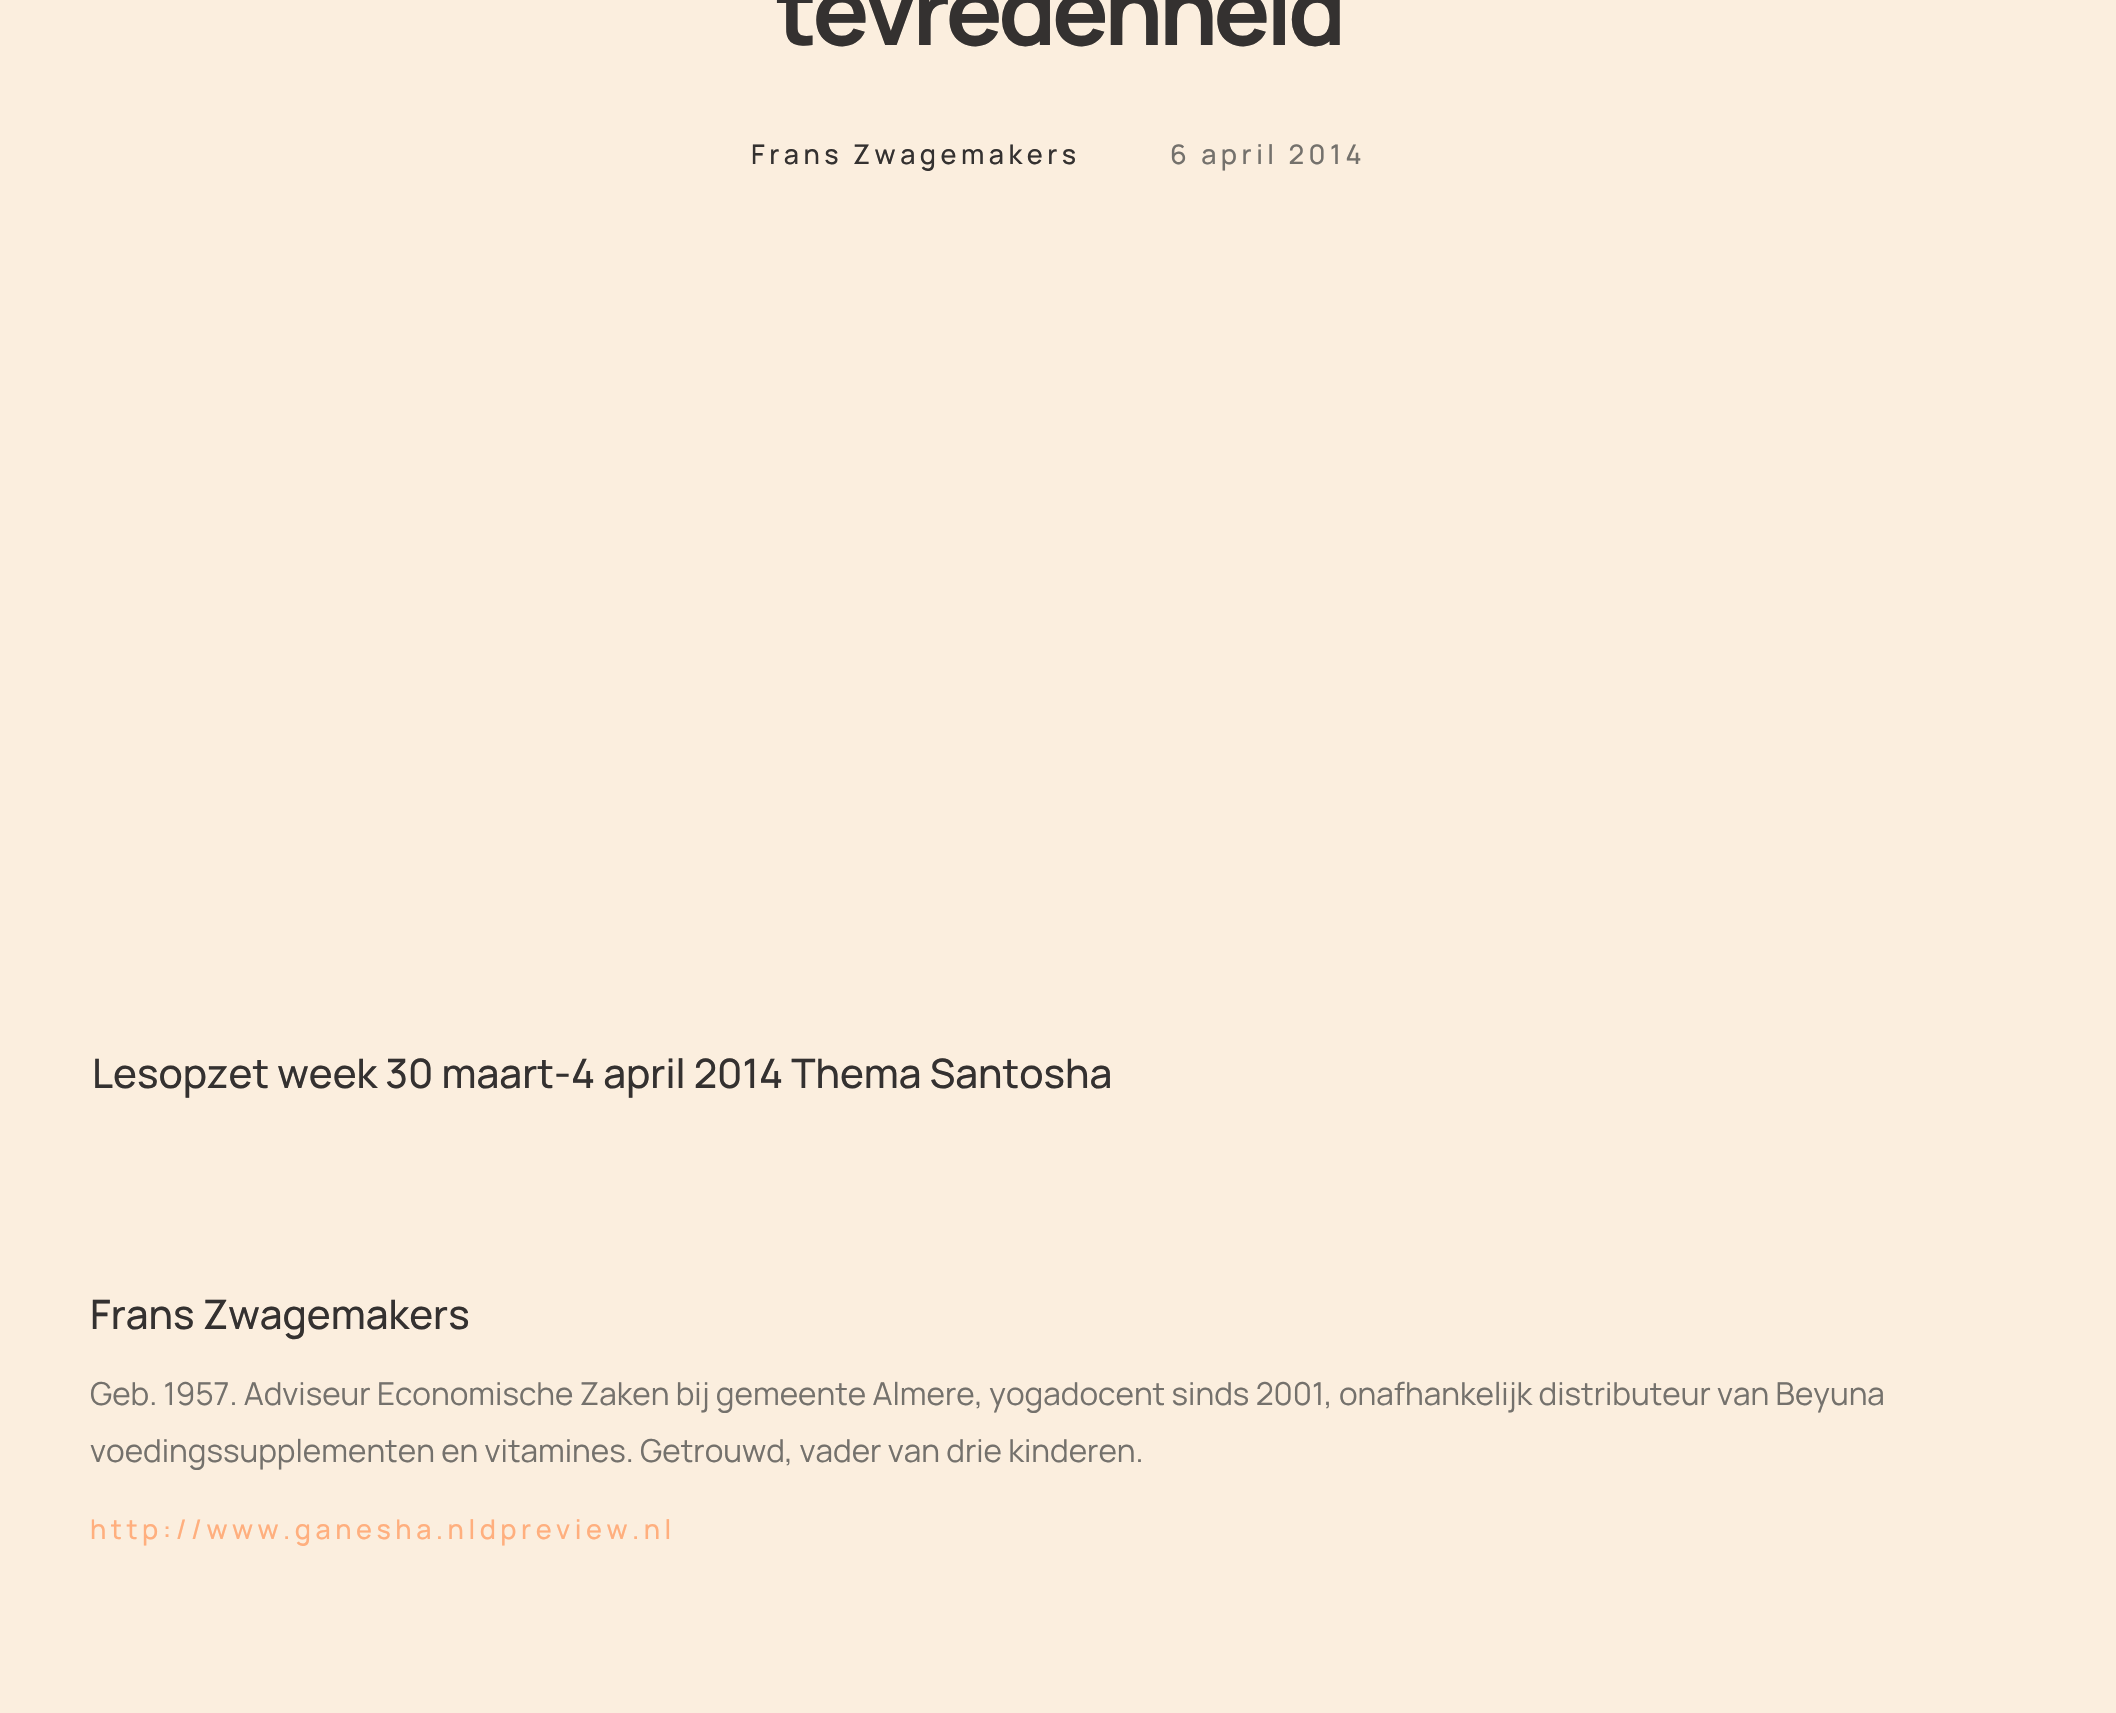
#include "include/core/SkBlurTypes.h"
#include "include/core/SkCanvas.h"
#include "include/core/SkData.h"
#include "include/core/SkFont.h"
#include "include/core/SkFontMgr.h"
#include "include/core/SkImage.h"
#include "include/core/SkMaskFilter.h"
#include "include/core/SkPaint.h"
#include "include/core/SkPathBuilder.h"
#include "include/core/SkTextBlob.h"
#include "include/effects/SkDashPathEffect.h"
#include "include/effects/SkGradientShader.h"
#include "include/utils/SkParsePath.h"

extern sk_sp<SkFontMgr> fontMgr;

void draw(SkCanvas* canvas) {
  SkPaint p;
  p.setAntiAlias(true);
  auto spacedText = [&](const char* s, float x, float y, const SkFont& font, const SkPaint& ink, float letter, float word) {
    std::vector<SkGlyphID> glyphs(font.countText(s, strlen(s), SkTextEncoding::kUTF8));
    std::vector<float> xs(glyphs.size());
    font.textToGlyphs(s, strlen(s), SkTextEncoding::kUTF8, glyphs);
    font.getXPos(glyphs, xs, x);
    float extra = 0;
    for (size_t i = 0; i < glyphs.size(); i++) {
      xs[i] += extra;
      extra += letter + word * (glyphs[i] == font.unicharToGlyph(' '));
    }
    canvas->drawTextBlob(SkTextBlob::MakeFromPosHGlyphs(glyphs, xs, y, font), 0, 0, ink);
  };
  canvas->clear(SkColorSetRGB(251, 238, 222));
  SkFont font1(fontMgr->matchFamilyStyle("Manrope", SkFontStyle::Bold()), 94.5f);
  font1.setSubpixel(true);
  p.setColor(SkColorSetRGB(52, 49, 48));
  spacedText("tevredenheid", 776, 45, font1, p, -4.5f, 0);
  SkFont font2(fontMgr->matchFamilyStyle("Manrope", SkFontStyle(500, SkFontStyle::kNormal_Width, SkFontStyle::kUpright_Slant)), 27);
  font2.setSubpixel(true);
  spacedText("Frans Zwagemakers", 751, 164, font2, p, 4.5f, 0);
  p.setColor(SkColorSetRGB(116, 113, 108));
  spacedText("6 april 2014", 1170, 164, font2, p, 4.5f, 0);
  SkFont font3(fontMgr->matchFamilyStyle("Manrope", SkFontStyle(500, SkFontStyle::kNormal_Width, SkFontStyle::kUpright_Slant)), 40.5f);
  font3.setSubpixel(true);
  p.setColor(SkColorSetRGB(52, 49, 48));
  canvas->drawString("Lesopzet week 30 maart-4 april 2014 Thema Santosha", 92, 1088, font3, p);
  canvas->drawString("Frans Zwagemakers", 90, 1329, font3, p);
  SkFont font4(fontMgr->matchFamilyStyle("Manrope", SkFontStyle::Normal()), 31.5f);
  font4.setSubpixel(true);
  p.setColor(SkColorSetRGB(116, 113, 108));
  canvas->drawString("Geb. 1957. Adviseur Economische Zaken bij gemeente Almere, yogadocent sinds 2001, onafhankelijk distributeur van Beyuna", 90, 1405, font4, p);
  canvas->drawString("voedingssupplementen en vitamines. Getrouwd, vader van drie kinderen.", 90, 1462, font4, p);
  p.setColor(SkColorSetRGB(255, 175, 126));
  spacedText("http://www.ganesha.nldpreview.nl", 90, 1539, font2, p, 4.5f, 0);
}
